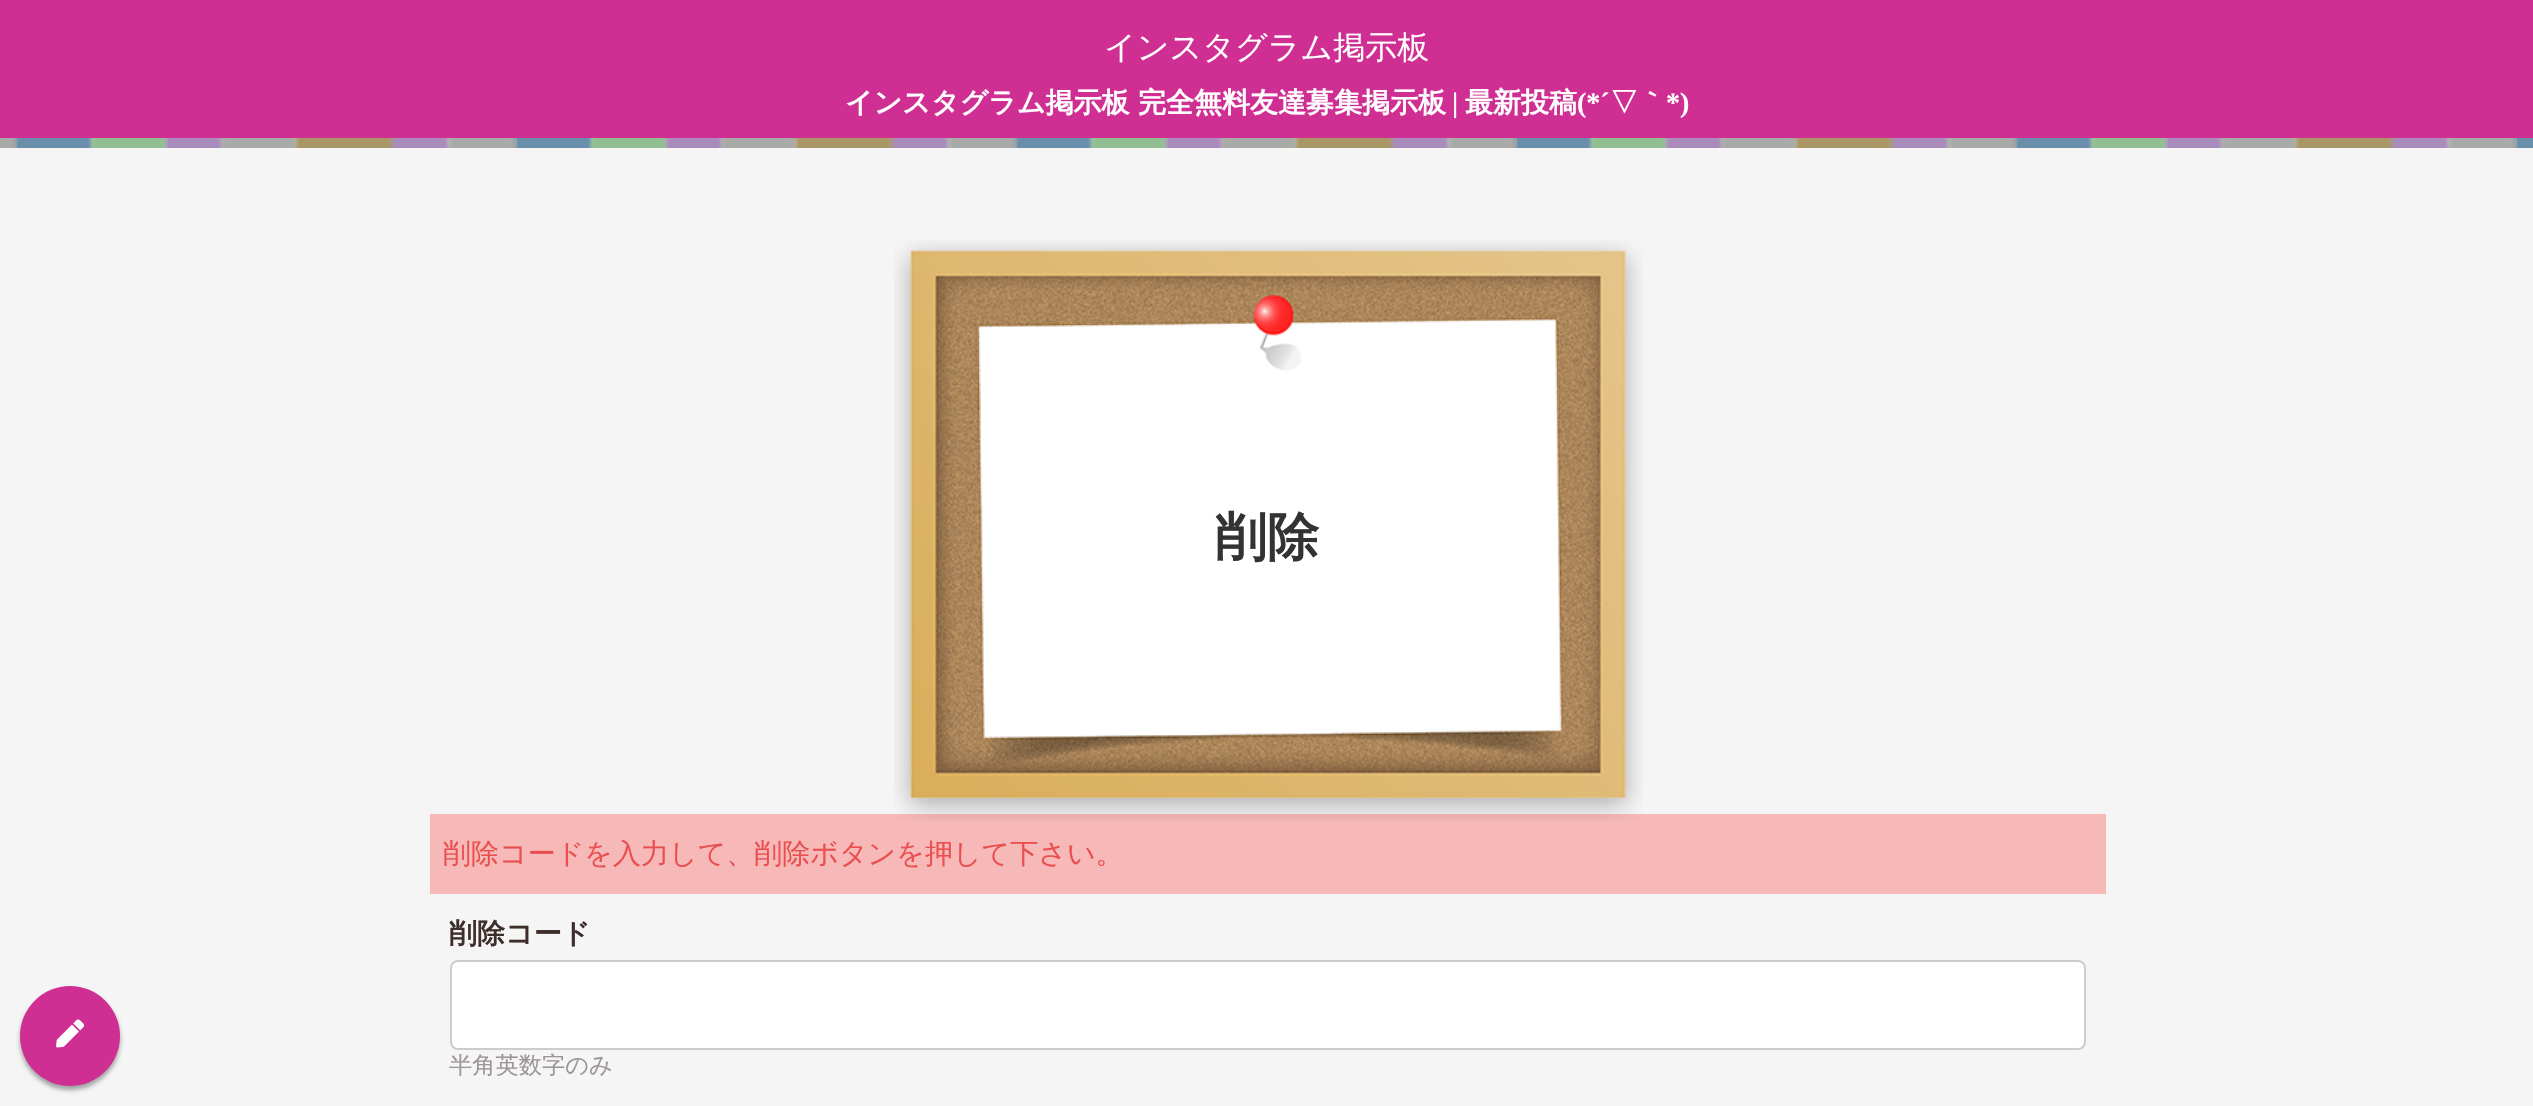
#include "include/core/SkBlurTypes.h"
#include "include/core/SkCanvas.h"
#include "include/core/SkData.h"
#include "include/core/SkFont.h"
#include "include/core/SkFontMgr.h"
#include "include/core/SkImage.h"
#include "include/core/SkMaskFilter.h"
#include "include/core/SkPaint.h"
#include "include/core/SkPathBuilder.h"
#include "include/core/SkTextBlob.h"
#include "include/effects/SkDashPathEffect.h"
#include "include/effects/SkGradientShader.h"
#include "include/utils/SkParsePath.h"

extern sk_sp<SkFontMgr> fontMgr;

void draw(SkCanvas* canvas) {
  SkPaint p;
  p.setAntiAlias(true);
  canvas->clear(SkColorSetRGB(245, 245, 245));
  p.setColor(SkColorSetRGB(207, 46, 146));
  canvas->drawRect(SkRect::MakeLTRB(0, 0, 2533, 138), p);
  canvas->drawImageRect(SkImages::DeferredFromEncodedData(SkData::MakeFromFileName("images/1.png")), SkRect::MakeLTRB(0, 138, 2533, 148), SkSamplingOptions());
  p.setColor(SkColorSetARGB(61, 0, 0, 0));
  p.setMaskFilter(SkMaskFilter::MakeBlur(kNormal_SkBlurStyle, 2));
  canvas->drawRoundRect(SkRect::MakeLTRB(20, 990, 120, 1090), 50, 50, p);
  p.setMaskFilter(nullptr);
  p.setColor(SkColorSetARGB(31, 0, 0, 0));
  p.setMaskFilter(SkMaskFilter::MakeBlur(kNormal_SkBlurStyle, 2));
  canvas->drawRoundRect(SkRect::MakeLTRB(20, 990, 120, 1090), 50, 50, p);
  p.setMaskFilter(nullptr);
  p.setColor(SkColorSetRGB(207, 46, 146));
  canvas->drawCircle(70, 1036, 50, p);
  canvas->drawImageRect(SkImages::DeferredFromEncodedData(SkData::MakeFromFileName("images/2.png")), SkRect::MakeLTRB(56, 1019, 84, 1048), SkSamplingOptions());
  p.setColor(SkColorSetRGB(247, 184, 184));
  canvas->drawRect(SkRect::MakeLTRB(430, 814, 2106, 894), p);
  canvas->drawImageRect(SkImages::DeferredFromEncodedData(SkData::MakeFromFileName("images/3.png")), SkRect::MakeLTRB(894, 240, 1643, 821), SkSamplingOptions());
  p.setColor(SK_ColorWHITE);
  canvas->drawRoundRect(SkRect::MakeLTRB(451, 961, 2085, 1049), 7, 7, p);
  p.setStyle(SkPaint::kStroke_Style);
  p.setStrokeWidth(2);
  p.setColor(SkColorSetRGB(204, 204, 204));
  canvas->drawRoundRect(SkRect::MakeLTRB(451, 961, 2085, 1049), 7, 7, p);
  SkFont font1(fontMgr->matchFamilyStyle("WenQuanYi Zen Hei", SkFontStyle(500, SkFontStyle::kNormal_Width, SkFontStyle::kUpright_Slant)), 32);
  font1.setSubpixel(true);
  p.setStyle(SkPaint::kFill_Style);
  p.setColor(SK_ColorWHITE);
  canvas->drawString("インスタグラム掲示板", 1104, 58, font1, p);
  SkFont font2(fontMgr->matchFamilyStyle("WenQuanYi Zen Hei", SkFontStyle::Bold()), 28);
  font2.setSubpixel(true);
  canvas->drawString("インスタグラム掲示板 完全無料友達募集掲示板", 845, 112, font2, p);
  SkFont font3(fontMgr->matchFamilyStyle("Liberation Serif", SkFontStyle::Bold()), 28);
  font3.setSubpixel(true);
  canvas->drawString("|", 1452, 112, font3, p);
  canvas->drawString("最新投稿", 1465, 112, font2, p);
  canvas->drawString("(*´", 1577, 112, font3, p);
  canvas->drawString("▽｀", 1610, 112, font2, p);
  canvas->drawString("*)", 1666, 112, font3, p);
  SkFont font4(fontMgr->matchFamilyStyle("WenQuanYi Zen Hei", SkFontStyle::Bold()), 52);
  font4.setSubpixel(true);
  p.setColor(SkColorSetRGB(51, 51, 51));
  canvas->drawString("削除", 1215, 555, font4, p);
  SkFont font5(fontMgr->matchFamilyStyle("WenQuanYi Zen Hei", SkFontStyle(500, SkFontStyle::kNormal_Width, SkFontStyle::kUpright_Slant)), 28);
  font5.setSubpixel(true);
  p.setColor(SkColorSetRGB(234, 78, 78));
  canvas->drawString("削除コードを入力して、削除ボタンを押して下さい。", 443, 863, font5, p);
  p.setColor(SkColorSetRGB(61, 46, 43));
  canvas->drawString("削除コード", 449, 943, font2, p);
  SkFont font6(fontMgr->matchFamilyStyle("WenQuanYi Zen Hei", SkFontStyle(500, SkFontStyle::kNormal_Width, SkFontStyle::kUpright_Slant)), 23.25f);
  font6.setSubpixel(true);
  p.setColor(SkColorSetRGB(156, 150, 149));
  canvas->drawString("半角英数字のみ", 449, 1073, font6, p);
}
